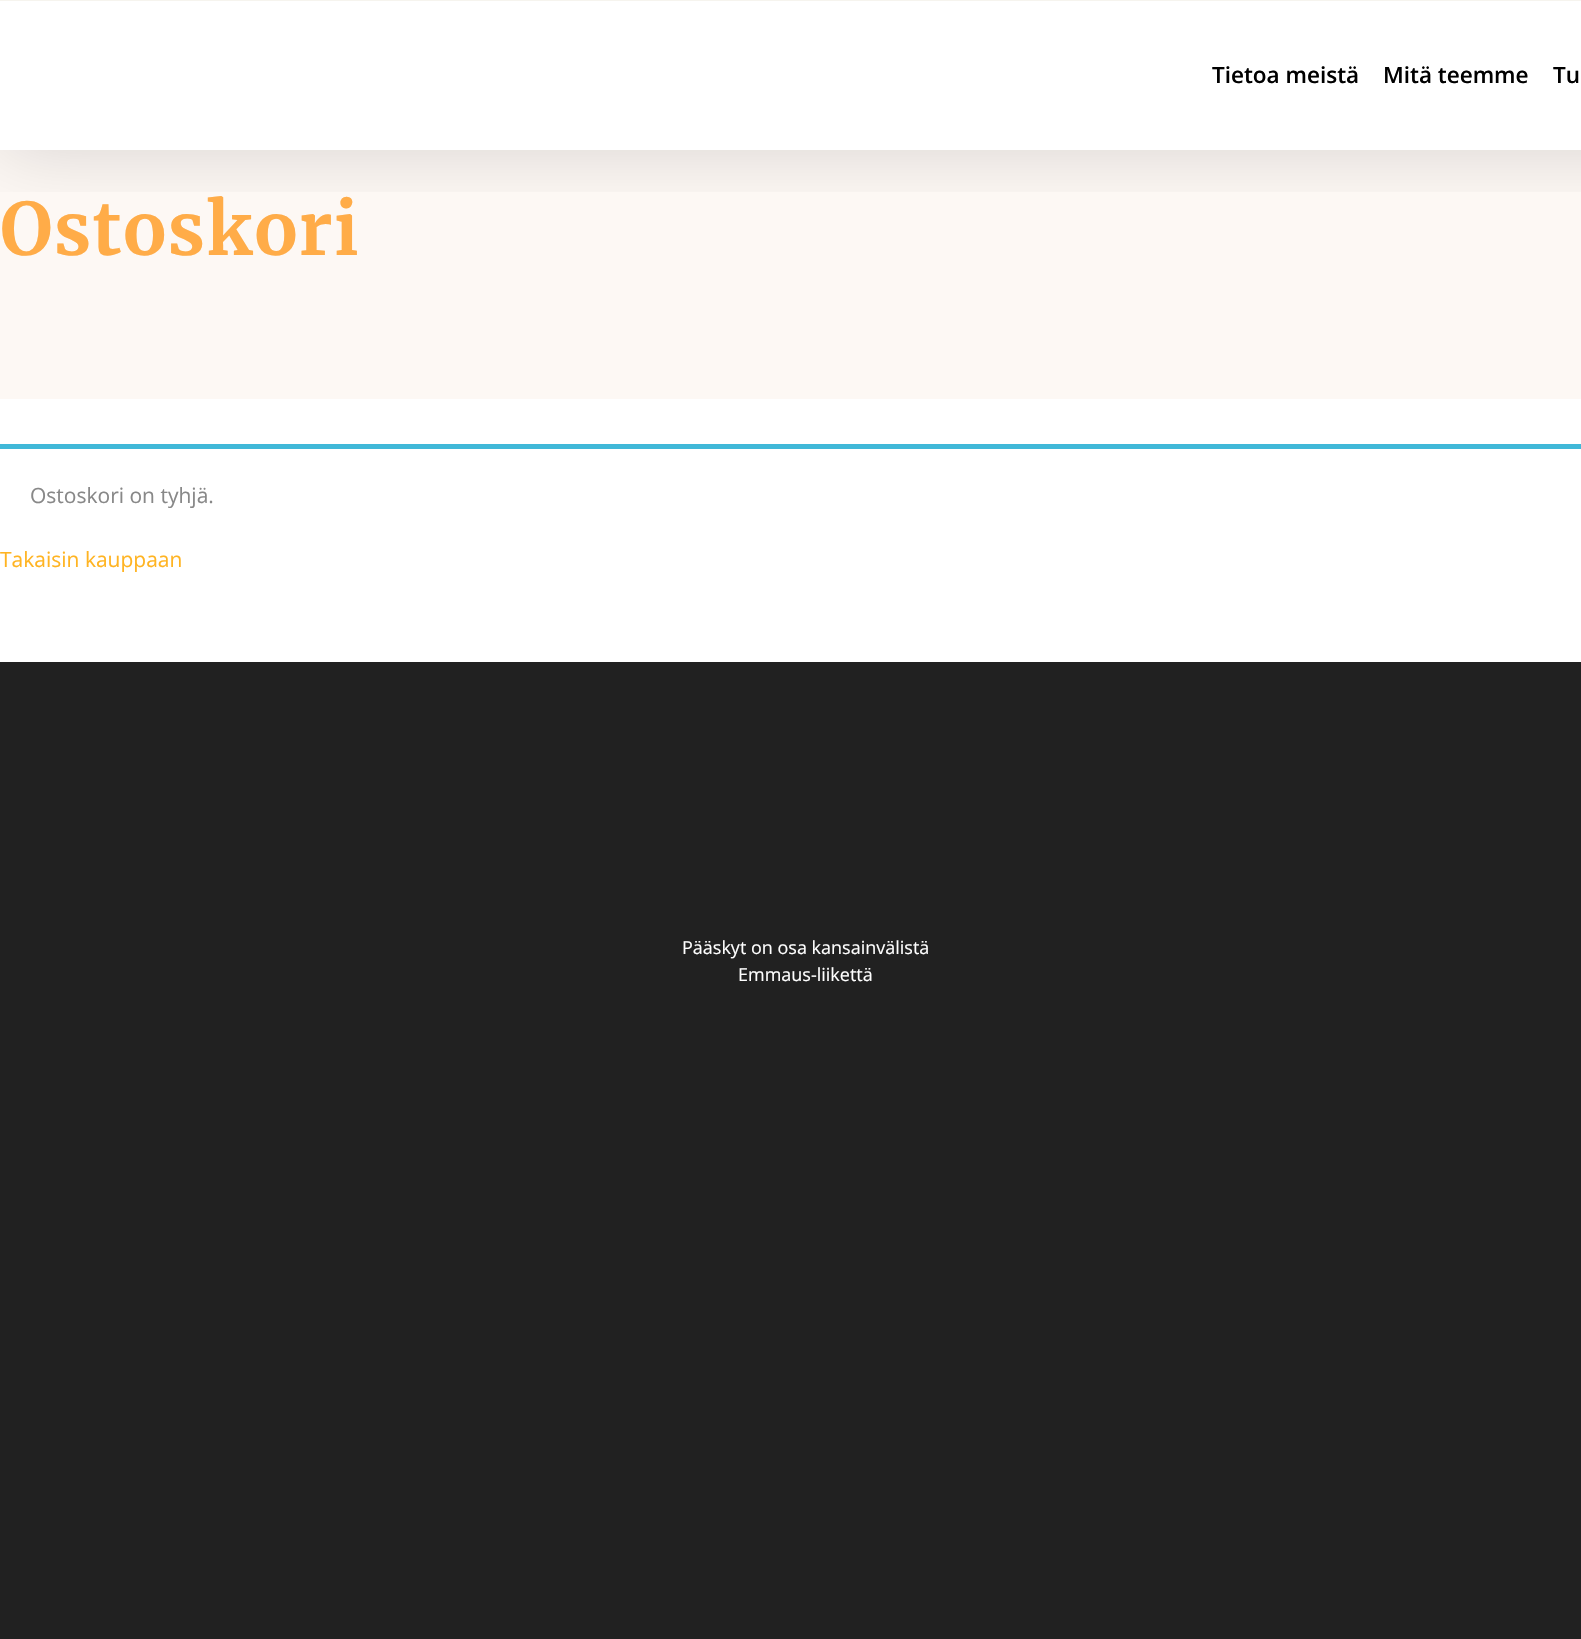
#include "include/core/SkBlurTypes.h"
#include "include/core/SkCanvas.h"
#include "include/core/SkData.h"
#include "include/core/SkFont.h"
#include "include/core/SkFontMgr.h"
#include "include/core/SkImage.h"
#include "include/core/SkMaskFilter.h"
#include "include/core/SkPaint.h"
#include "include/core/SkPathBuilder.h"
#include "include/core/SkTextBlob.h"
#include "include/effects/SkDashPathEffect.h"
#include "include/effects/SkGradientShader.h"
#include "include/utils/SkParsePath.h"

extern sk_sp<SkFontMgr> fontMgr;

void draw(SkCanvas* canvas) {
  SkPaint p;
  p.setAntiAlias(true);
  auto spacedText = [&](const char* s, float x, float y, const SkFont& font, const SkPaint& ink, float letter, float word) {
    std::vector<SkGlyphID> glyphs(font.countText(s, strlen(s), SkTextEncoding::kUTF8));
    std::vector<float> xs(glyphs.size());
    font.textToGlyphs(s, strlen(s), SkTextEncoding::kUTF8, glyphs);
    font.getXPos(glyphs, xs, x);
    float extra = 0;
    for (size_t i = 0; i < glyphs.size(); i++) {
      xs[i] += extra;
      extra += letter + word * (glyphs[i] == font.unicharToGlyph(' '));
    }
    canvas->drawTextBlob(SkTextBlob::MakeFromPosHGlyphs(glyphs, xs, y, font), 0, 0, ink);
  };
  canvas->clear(SK_ColorWHITE);
  p.setColor(SkColorSetRGB(253, 248, 244));
  canvas->drawRect(SkRect::MakeLTRB(0, 150, 1581, 399), p);
  canvas->save();
  canvas->clipRect(SkRect::MakeLTRB(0, 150, 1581, 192));
  p.setColor(SkColorSetARGB(38, 0, 0, 0));
  p.setMaskFilter(SkMaskFilter::MakeBlur(kNormal_SkBlurStyle, 37.5f));
  canvas->drawRect(SkRect::MakeLTRB(0, 0, 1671, 150), p);
  p.setMaskFilter(nullptr);
  canvas->restore();
  p.setColor(SkColorSetRGB(246, 244, 238));
  canvas->drawRect(SkRect::MakeLTRB(0, 0, 1581, 1), p);
  p.setColor(SkColorSetRGB(64, 184, 216));
  canvas->drawRect(SkRect::MakeLTRB(0, 444, 1581, 449), p);
  p.setColor(SkColorSetRGB(33, 33, 33));
  canvas->drawRect(SkRect::MakeLTRB(0, 662, 1581, 1639), p);
  SkFont font1(fontMgr->matchFamilyStyle("Open Sans", SkFontStyle(600, SkFontStyle::kNormal_Width, SkFontStyle::kUpright_Slant)), 22.5f);
  font1.setSubpixel(true);
  p.setColor(SK_ColorBLACK);
  canvas->drawString("Tietoa meistä", 1212, 83, font1, p);
  canvas->drawString("Mitä teemme", 1383, 83, font1, p);
  canvas->drawString("Tu", 1553, 83, font1, p);
  SkFont font2(fontMgr->matchFamilyStyle("Merriweather", SkFontStyle::Bold()), 72);
  font2.setSubpixel(true);
  p.setColor(SkColorSetRGB(255, 172, 72));
  spacedText("Ostoskori", 0, 255, font2, p, 1.5f, 0);
  SkFont font3(fontMgr->matchFamilyStyle("Open Sans", SkFontStyle::Normal()), 21);
  font3.setSubpixel(true);
  p.setColor(SkColorSetRGB(136, 136, 136));
  canvas->drawString("Ostoskori on tyhjä.", 30, 503, font3, p);
  p.setColor(SkColorSetRGB(255, 180, 34));
  canvas->drawString("Takaisin kauppaan", 0, 567, font3, p);
  SkFont font4(fontMgr->matchFamilyStyle("Open Sans", SkFontStyle::Normal()), 18);
  font4.setSubpixel(true);
  p.setColor(SK_ColorWHITE);
  canvas->drawString("Pääskyt on osa kansainvälistä", 682, 954, font4, p);
  canvas->drawString("Emmaus-liikettä", 738, 981, font4, p);
}
